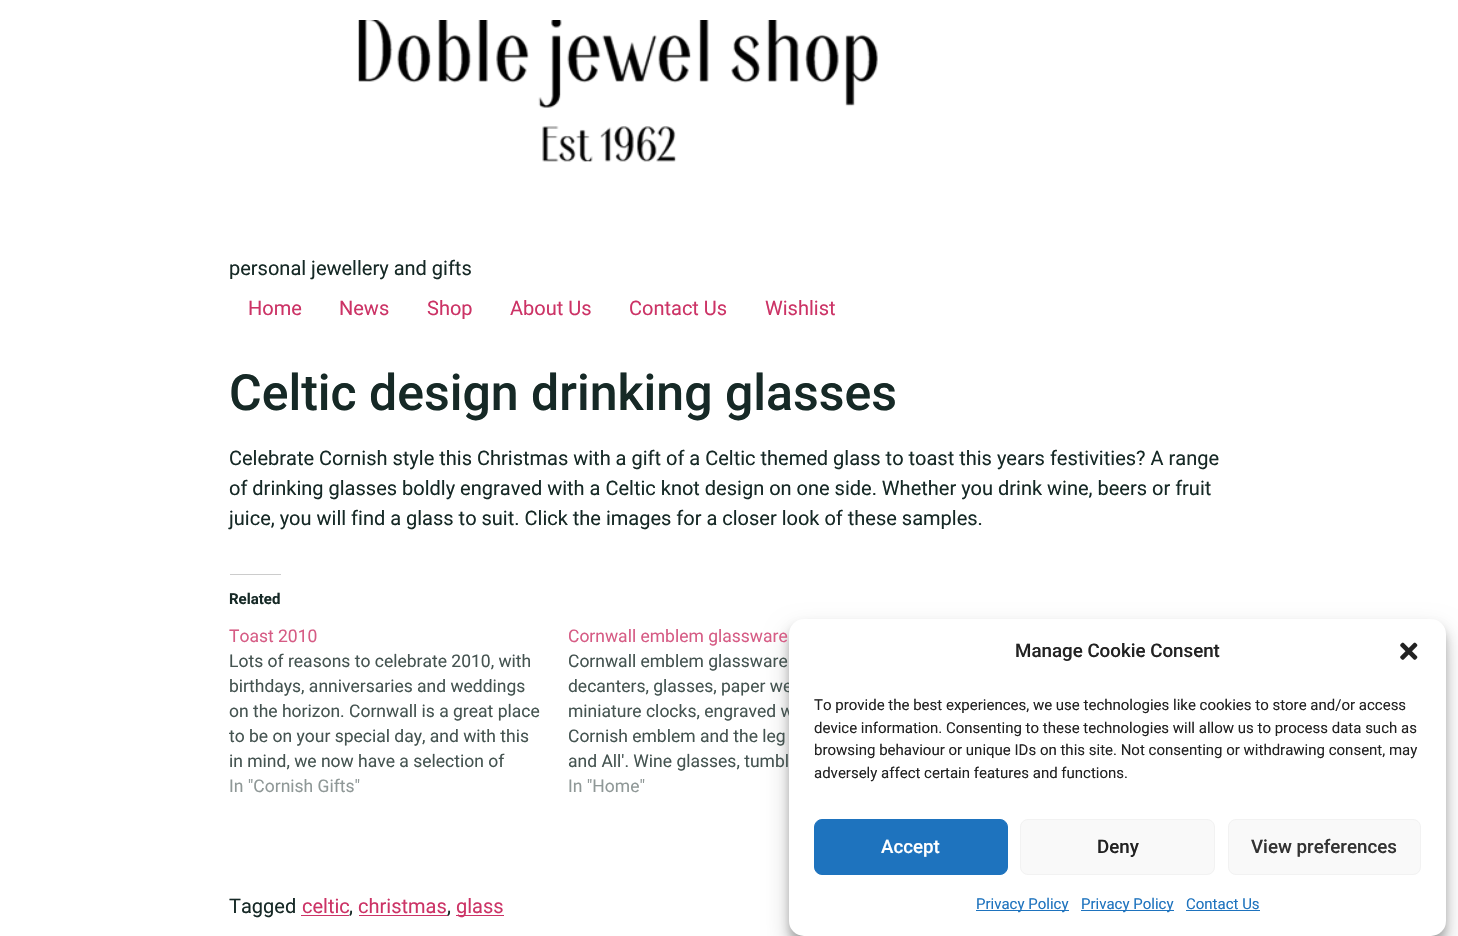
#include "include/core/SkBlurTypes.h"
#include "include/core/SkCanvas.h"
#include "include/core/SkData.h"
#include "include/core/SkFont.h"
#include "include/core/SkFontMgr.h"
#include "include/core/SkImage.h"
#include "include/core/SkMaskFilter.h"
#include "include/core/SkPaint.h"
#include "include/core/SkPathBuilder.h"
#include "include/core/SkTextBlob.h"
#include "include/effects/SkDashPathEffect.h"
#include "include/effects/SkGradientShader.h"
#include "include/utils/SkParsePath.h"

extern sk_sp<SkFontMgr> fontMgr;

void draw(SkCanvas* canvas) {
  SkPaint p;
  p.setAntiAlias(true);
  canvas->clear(SK_ColorWHITE);
  canvas->drawImageRect(SkImages::DeferredFromEncodedData(SkData::MakeFromFileName("images/1.png")), SkRect::MakeLTRB(358, 20, 878, 162), SkSamplingOptions());
  p.setColor(SkColorSetRGB(204, 204, 204));
  canvas->drawRect(SkRect::MakeLTRB(230, 574, 281, 575), p);
  p.setColor(SkColorSetRGB(204, 51, 102));
  canvas->drawRect(SkRect::MakeLTRB(301, 915, 349, 916), p);
  canvas->drawRect(SkRect::MakeLTRB(359, 915, 448, 916), p);
  canvas->drawRect(SkRect::MakeLTRB(456, 915, 504, 916), p);
  p.setColor(SkColorSetARGB(59, 0, 0, 0));
  p.setMaskFilter(SkMaskFilter::MakeBlur(kNormal_SkBlurStyle, 4));
  canvas->drawRoundRect(SkRect::MakeLTRB(789, 626, 1446, 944), 15, 15, p);
  p.setMaskFilter(nullptr);
  p.setColor(SkColorSetARGB(48, 0, 0, 0));
  p.setMaskFilter(SkMaskFilter::MakeBlur(kNormal_SkBlurStyle, 12.5f));
  canvas->drawRoundRect(SkRect::MakeLTRB(789, 631, 1446, 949), 15, 15, p);
  p.setMaskFilter(nullptr);
  SkFont font1(fontMgr->matchFamilyStyle("Roboto", SkFontStyle::Normal()), 20);
  font1.setSubpixel(true);
  p.setColor(SkColorSetRGB(22, 41, 38));
  canvas->drawString("personal jewellery and gifts", 229, 275, font1, p);
  p.setColor(SkColorSetRGB(204, 51, 102));
  canvas->drawString("Home", 248, 315, font1, p);
  canvas->drawString("News", 339, 315, font1, p);
  canvas->drawString("Shop", 427, 315, font1, p);
  canvas->drawString("About Us", 510, 315, font1, p);
  canvas->drawString("Contact Us", 629, 315, font1, p);
  canvas->drawString("Wishlist", 765, 315, font1, p);
  SkFont font2(fontMgr->matchFamilyStyle("Roboto", SkFontStyle(500, SkFontStyle::kNormal_Width, SkFontStyle::kUpright_Slant)), 50);
  font2.setSubpixel(true);
  p.setColor(SkColorSetRGB(22, 41, 38));
  canvas->drawString("Celtic design drinking glasses", 229, 410, font2, p);
  canvas->drawString("Celebrate Cornish style this Christmas with a gift of a Celtic themed glass to toast this years festivities? A range", 229, 465, font1, p);
  canvas->drawString("of drinking glasses boldly engraved with a Celtic knot design on one side. Whether you drink wine, beers or fruit", 229, 495, font1, p);
  canvas->drawString("juice, you will find a glass to suit. Click the images for a closer look of these samples.", 229, 525, font1, p);
  SkFont font3(fontMgr->matchFamilyStyle("Roboto", SkFontStyle::Bold()), 15);
  font3.setSubpixel(true);
  canvas->drawString("Related", 229, 604, font3, p);
  SkFont font4(fontMgr->matchFamilyStyle("Roboto", SkFontStyle::Normal()), 17.5f);
  font4.setSubpixel(true);
  p.setColor(SkColorSetRGB(214, 92, 133));
  canvas->drawString("Toast 2010", 229, 642, font4, p);
  p.setColor(SkColorSetRGB(69, 84, 81));
  canvas->drawString("Lots of reasons to celebrate 2010, with", 229, 667, font4, p);
  canvas->drawString("birthdays, anniversaries and weddings", 229, 692, font4, p);
  canvas->drawString("on the horizon. Cornwall is a great place", 229, 717, font4, p);
  canvas->drawString("to be on your special day, and with this", 229, 742, font4, p);
  canvas->drawString("in mind, we now have a selection of", 229, 767, font4, p);
  p.setColor(SkColorSetRGB(143, 152, 151));
  canvas->drawString("In \"Cornish Gifts\"", 229, 792, font4, p);
  p.setColor(SkColorSetRGB(214, 92, 133));
  canvas->drawString("Cornwall emblem glassware", 568, 642, font4, p);
  p.setColor(SkColorSetRGB(69, 84, 81));
  canvas->drawString("Cornwall emblem glassware", 568, 667, font4, p);
  canvas->drawString("decanters, glasses, paper we", 568, 692, font4, p);
  canvas->drawString("miniature clocks, engraved w", 568, 717, font4, p);
  canvas->drawString("Cornish emblem and the leg", 568, 742, font4, p);
  canvas->drawString("and All'. Wine glasses, tumbl", 568, 767, font4, p);
  p.setColor(SkColorSetRGB(143, 152, 151));
  canvas->drawString("In \"Home\"", 568, 792, font4, p);
  p.setColor(SkColorSetRGB(22, 41, 38));
  canvas->drawString("Tagged", 229, 913, font1, p);
  p.setColor(SkColorSetRGB(204, 51, 102));
  canvas->drawString("celtic", 302, 913, font1, p);
  p.setColor(SkColorSetRGB(22, 41, 38));
  canvas->drawString(",", 349, 913, font1, p);
  p.setColor(SkColorSetRGB(204, 51, 102));
  canvas->drawString("christmas", 358, 913, font1, p);
  p.setColor(SkColorSetRGB(22, 41, 38));
  canvas->drawString(",", 447, 913, font1, p);
  p.setColor(SkColorSetRGB(204, 51, 102));
  canvas->drawString("glass", 456, 913, font1, p);
  p.setColor(SK_ColorWHITE);
  canvas->drawRoundRect(SkRect::MakeLTRB(789, 619, 1446, 936), 15, 15, p);
  SkFont font5(fontMgr->matchFamilyStyle("Roboto", SkFontStyle(500, SkFontStyle::kNormal_Width, SkFontStyle::kUpright_Slant)), 18.75f);
  font5.setSubpixel(true);
  p.setColor(SkColorSetRGB(34, 34, 34));
  canvas->drawString("Manage Cookie Consent", 1015, 657, font5, p);
  canvas->drawImageRect(SkImages::DeferredFromEncodedData(SkData::MakeFromFileName("images/2.png")), SkRect::MakeLTRB(1400, 642, 1418, 660), SkSamplingOptions());
  SkFont font6(fontMgr->matchFamilyStyle("Roboto", SkFontStyle::Normal()), 15);
  font6.setSubpixel(true);
  canvas->drawString("To provide the best experiences, we use technologies like cookies to store and/or access", 814, 710, font6, p);
  canvas->drawString("device information. Consenting to these technologies will allow us to process data such as", 814, 733, font6, p);
  canvas->drawString("browsing behaviour or unique IDs on this site. Not consenting or withdrawing consent, may", 814, 755, font6, p);
  canvas->drawString("adversely affect certain features and functions.", 814, 778, font6, p);
  p.setColor(SkColorSetRGB(30, 115, 190));
  canvas->drawRoundRect(SkRect::MakeLTRB(814.5f, 819.5f, 1007.5f, 874.5f), 7.5f, 7.5f, p);
  p.setStyle(SkPaint::kStroke_Style);
  p.setStrokeWidth(1);
  canvas->drawRoundRect(SkRect::MakeLTRB(814.5f, 819.5f, 1007.5f, 874.5f), 7.5f, 7.5f, p);
  p.setStyle(SkPaint::kFill_Style);
  p.setColor(SK_ColorWHITE);
  canvas->drawString("Accept", 881, 853, font5, p);
  p.setColor(SkColorSetRGB(249, 249, 249));
  canvas->drawRoundRect(SkRect::MakeLTRB(1020.5f, 819.5f, 1214.5f, 874.5f), 7.5f, 7.5f, p);
  p.setStyle(SkPaint::kStroke_Style);
  p.setColor(SkColorSetRGB(242, 242, 242));
  canvas->drawRoundRect(SkRect::MakeLTRB(1020.5f, 819.5f, 1214.5f, 874.5f), 7.5f, 7.5f, p);
  p.setStyle(SkPaint::kFill_Style);
  p.setColor(SkColorSetRGB(34, 34, 34));
  canvas->drawString("Deny", 1097, 853, font5, p);
  p.setColor(SkColorSetRGB(249, 249, 249));
  canvas->drawRoundRect(SkRect::MakeLTRB(1228.5f, 819.5f, 1420.5f, 874.5f), 7.5f, 7.5f, p);
  p.setStyle(SkPaint::kStroke_Style);
  p.setColor(SkColorSetRGB(242, 242, 242));
  canvas->drawRoundRect(SkRect::MakeLTRB(1228.5f, 819.5f, 1420.5f, 874.5f), 7.5f, 7.5f, p);
  p.setStyle(SkPaint::kFill_Style);
  p.setColor(SkColorSetRGB(51, 51, 51));
  canvas->drawString("View preferences", 1251, 853, font5, p);
  p.setColor(SkColorSetRGB(30, 115, 190));
  canvas->drawRect(SkRect::MakeLTRB(976, 910, 1069, 911), p);
  canvas->drawString("Privacy Policy", 976, 909, font6, p);
  canvas->drawRect(SkRect::MakeLTRB(1081, 910, 1174, 911), p);
  canvas->drawString("Privacy Policy", 1081, 909, font6, p);
  canvas->drawString("Contact Us", 1186, 909, font6, p);
  canvas->drawRect(SkRect::MakeLTRB(1186, 910, 1260, 911), p);
}
